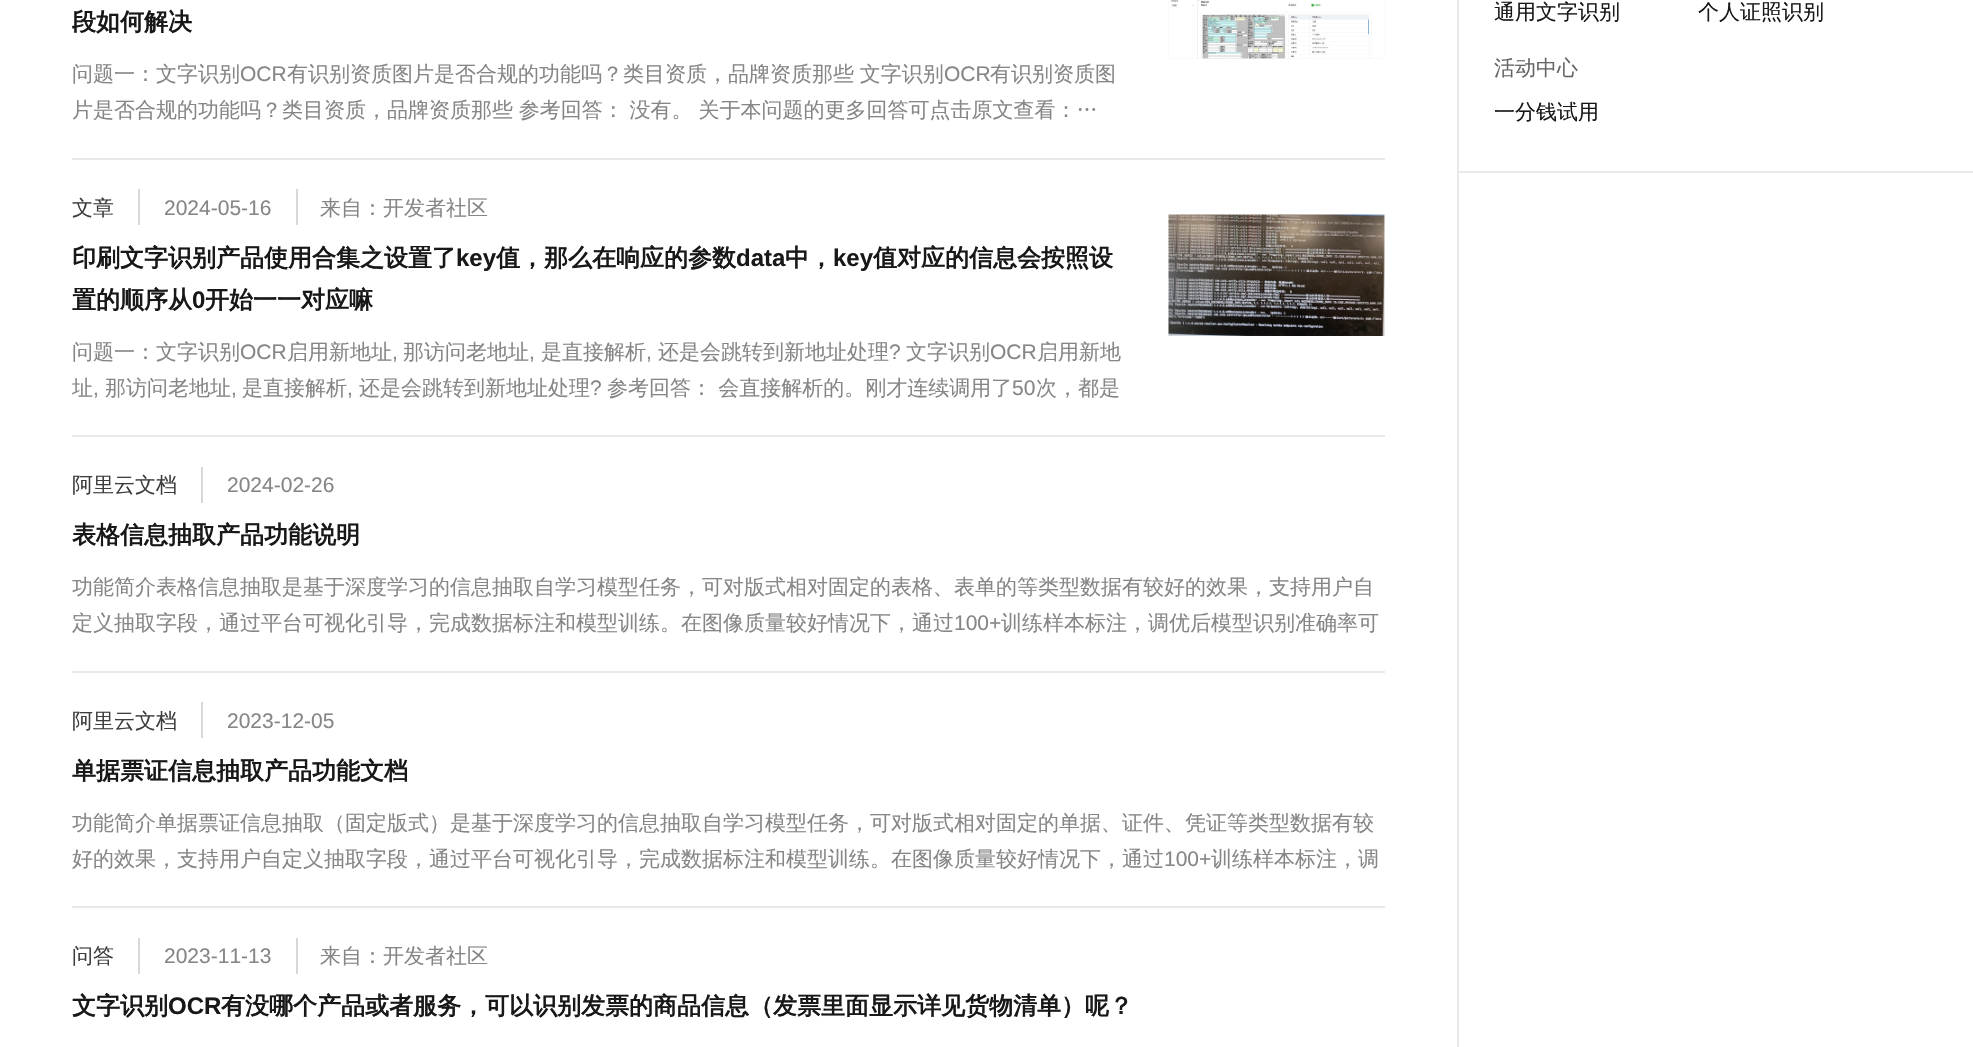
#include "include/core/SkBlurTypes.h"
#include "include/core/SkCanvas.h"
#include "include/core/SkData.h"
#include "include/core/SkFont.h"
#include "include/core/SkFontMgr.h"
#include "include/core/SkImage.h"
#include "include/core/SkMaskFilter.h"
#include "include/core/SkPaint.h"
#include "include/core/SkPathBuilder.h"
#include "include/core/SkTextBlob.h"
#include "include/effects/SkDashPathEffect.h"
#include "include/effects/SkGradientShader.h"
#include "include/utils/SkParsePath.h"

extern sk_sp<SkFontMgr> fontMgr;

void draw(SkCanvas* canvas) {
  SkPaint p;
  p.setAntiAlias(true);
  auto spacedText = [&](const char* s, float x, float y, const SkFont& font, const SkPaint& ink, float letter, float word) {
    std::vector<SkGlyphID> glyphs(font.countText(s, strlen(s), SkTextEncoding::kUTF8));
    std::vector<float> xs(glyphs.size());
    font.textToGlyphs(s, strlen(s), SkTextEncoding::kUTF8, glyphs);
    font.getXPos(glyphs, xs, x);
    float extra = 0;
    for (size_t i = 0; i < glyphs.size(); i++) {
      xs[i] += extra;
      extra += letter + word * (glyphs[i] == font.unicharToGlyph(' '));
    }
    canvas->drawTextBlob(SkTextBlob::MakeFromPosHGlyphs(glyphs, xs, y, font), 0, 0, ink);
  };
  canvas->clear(SK_ColorWHITE);
  p.setColor(SkColorSetRGB(233, 233, 233));
  canvas->drawRect(SkRect::MakeLTRB(1457, 0, 1459, 1047), p);
  canvas->drawRect(SkRect::MakeLTRB(72, 158, 1385, 160), p);
  canvas->drawImageRect(SkImages::DeferredFromEncodedData(SkData::MakeFromFileName("images/1.png")), SkRect::MakeLTRB(1168, 0, 1385, 59), SkSamplingOptions());
  canvas->drawRect(SkRect::MakeLTRB(72, 435, 1385, 437), p);
  p.setColor(SkColorSetRGB(215, 216, 217));
  canvas->drawRect(SkRect::MakeLTRB(138, 189, 140, 225), p);
  canvas->drawRect(SkRect::MakeLTRB(296, 189, 298, 225), p);
  canvas->drawImageRect(SkImages::DeferredFromEncodedData(SkData::MakeFromFileName("images/2.png")), SkRect::MakeLTRB(1168, 214, 1385, 336), SkSamplingOptions());
  p.setColor(SkColorSetRGB(233, 233, 233));
  canvas->drawRect(SkRect::MakeLTRB(72, 671, 1385, 673), p);
  p.setColor(SkColorSetRGB(215, 216, 217));
  canvas->drawRect(SkRect::MakeLTRB(201, 467, 203, 503), p);
  p.setColor(SkColorSetRGB(233, 233, 233));
  canvas->drawRect(SkRect::MakeLTRB(72, 906, 1385, 908), p);
  p.setColor(SkColorSetRGB(215, 216, 217));
  canvas->drawRect(SkRect::MakeLTRB(201, 702, 203, 738), p);
  canvas->drawRect(SkRect::MakeLTRB(138, 938, 140, 974), p);
  canvas->drawRect(SkRect::MakeLTRB(296, 938, 298, 974), p);
  p.setColor(SkColorSetRGB(233, 233, 233));
  canvas->drawRect(SkRect::MakeLTRB(1458, 171, 1973, 173), p);
  SkFont font1(fontMgr->matchFamilyStyle("WenQuanYi Zen Hei", SkFontStyle::Bold()), 24);
  font1.setSubpixel(true);
  p.setColor(SkColorSetRGB(24, 24, 24));
  canvas->drawString("段如何解决", 72, 30, font1, p);
  SkFont font2(fontMgr->matchFamilyStyle("WenQuanYi Zen Hei", SkFontStyle(500, SkFontStyle::kNormal_Width, SkFontStyle::kUpright_Slant)), 21);
  font2.setSubpixel(true);
  p.setColor(SkColorSetRGB(134, 134, 134));
  canvas->drawString("问题一：文字识别", 72, 81, font2, p);
  SkFont font3(fontMgr->matchFamilyStyle("Liberation Sans", SkFontStyle::Normal()), 21);
  font3.setSubpixel(true);
  canvas->drawString("OCR", 240, 81, font3, p);
  spacedText("有识别资质图片是否合规的功能吗？类目资质，品牌资质那些 文字识别", 287, 81, font2, p, 0, -0.5f);
  canvas->drawString("OCR", 944, 81, font3, p);
  canvas->drawString("有识别资质图", 990, 81, font2, p);
  spacedText("片是否合规的功能吗？类目资质，品牌资质那些 参考回答： 没有。 关于本问题的更多回答可点击原文查看：…", 72, 117, font2, p, 0, -0.5f);
  p.setColor(SkColorSetRGB(61, 61, 61));
  canvas->drawString("文章", 72, 215, font2, p);
  p.setColor(SkColorSetRGB(134, 134, 134));
  canvas->drawString("2024-05-16", 164, 215, font3, p);
  canvas->drawString("来自：开发者社区", 320, 215, font2, p);
  p.setColor(SkColorSetRGB(24, 24, 24));
  canvas->drawString("印刷文字识别产品使用合集之设置了", 72, 266, font1, p);
  SkFont font4(fontMgr->matchFamilyStyle("Liberation Sans", SkFontStyle::Bold()), 24);
  font4.setSubpixel(true);
  canvas->drawString("key", 456, 266, font4, p);
  canvas->drawString("值，那么在响应的参数", 496, 266, font1, p);
  canvas->drawString("data", 736, 266, font4, p);
  canvas->drawString("中，", 785, 266, font1, p);
  canvas->drawString("key", 833, 266, font4, p);
  canvas->drawString("值对应的信息会按照设", 873, 266, font1, p);
  canvas->drawString("置的顺序从", 72, 308, font1, p);
  canvas->drawString("0", 192, 308, font4, p);
  canvas->drawString("开始一一对应嘛", 205, 308, font1, p);
  p.setColor(SkColorSetRGB(134, 134, 134));
  canvas->drawString("问题一：文字识别", 72, 359, font2, p);
  canvas->drawString("OCR", 240, 359, font3, p);
  canvas->drawString("启用新地址", 287, 359, font2, p);
  canvas->drawString(",", 392, 359, font3, p);
  canvas->drawString("那访问老地址", 403, 359, font2, p);
  canvas->drawString(",", 529, 359, font3, p);
  canvas->drawString("是直接解析", 541, 359, font2, p);
  canvas->drawString(",", 646, 359, font3, p);
  canvas->drawString("还是会跳转到新地址处理", 658, 359, font2, p);
  canvas->drawString("?", 889, 359, font3, p);
  canvas->drawString("文字识别", 906, 359, font2, p);
  canvas->drawString("OCR", 990, 359, font3, p);
  canvas->drawString("启用新地", 1037, 359, font2, p);
  canvas->drawString("址", 72, 395, font2, p);
  canvas->drawString(",", 93, 395, font3, p);
  canvas->drawString("那访问老地址", 105, 395, font2, p);
  canvas->drawString(",", 231, 395, font3, p);
  canvas->drawString("是直接解析", 242, 395, font2, p);
  canvas->drawString(",", 347, 395, font3, p);
  canvas->drawString("还是会跳转到新地址处理", 359, 395, font2, p);
  canvas->drawString("?", 590, 395, font3, p);
  canvas->drawString("参考回答： 会直接解析的。刚才连续调用了", 607, 395, font2, p);
  canvas->drawString("50", 1012, 395, font3, p);
  canvas->drawString("次，都是", 1036, 395, font2, p);
  p.setColor(SkColorSetRGB(61, 61, 61));
  canvas->drawString("阿里云文档", 72, 492, font2, p);
  p.setColor(SkColorSetRGB(134, 134, 134));
  canvas->drawString("2024-02-26", 227, 492, font3, p);
  p.setColor(SkColorSetRGB(24, 24, 24));
  canvas->drawString("表格信息抽取产品功能说明", 72, 543, font1, p);
  p.setColor(SkColorSetRGB(134, 134, 134));
  canvas->drawString("功能简介表格信息抽取是基于深度学习的信息抽取自学习模型任务，可对版式相对固定的表格、表单的等类型数据有较好的效果，支持用户自", 72, 594, font2, p);
  canvas->drawString("定义抽取字段，通过平台可视化引导，完成数据标注和模型训练。在图像质量较好情况下，通过", 72, 630, font2, p);
  canvas->drawString("100+", 954, 630, font3, p);
  canvas->drawString("训练样本标注，调优后模型识别准确率可", 1001, 630, font2, p);
  p.setColor(SkColorSetRGB(61, 61, 61));
  canvas->drawString("阿里云文档", 72, 728, font2, p);
  p.setColor(SkColorSetRGB(134, 134, 134));
  canvas->drawString("2023-12-05", 227, 728, font3, p);
  p.setColor(SkColorSetRGB(24, 24, 24));
  canvas->drawString("单据票证信息抽取产品功能文档", 72, 779, font1, p);
  p.setColor(SkColorSetRGB(134, 134, 134));
  canvas->drawString("功能简介单据票证信息抽取（固定版式）是基于深度学习的信息抽取自学习模型任务，可对版式相对固定的单据、证件、凭证等类型数据有较", 72, 830, font2, p);
  canvas->drawString("好的效果，支持用户自定义抽取字段，通过平台可视化引导，完成数据标注和模型训练。在图像质量较好情况下，通过", 72, 866, font2, p);
  canvas->drawString("100+", 1164, 866, font3, p);
  canvas->drawString("训练样本标注，调", 1211, 866, font2, p);
  p.setColor(SkColorSetRGB(61, 61, 61));
  canvas->drawString("问答", 72, 963, font2, p);
  p.setColor(SkColorSetRGB(134, 134, 134));
  canvas->drawString("2023-11-13", 164, 963, font3, p);
  canvas->drawString("来自：开发者社区", 320, 963, font2, p);
  p.setColor(SkColorSetRGB(24, 24, 24));
  canvas->drawString("文字识别", 72, 1014, font1, p);
  canvas->drawString("OCR", 168, 1014, font4, p);
  canvas->drawString("有没哪个产品或者服务，可以识别发票的商品信息（发票里面显示详见货物清单）呢？", 221, 1014, font1, p);
  canvas->drawString("通用文字识别", 1494, 19, font2, p);
  canvas->drawString("个人证照识别", 1698, 19, font2, p);
  p.setColor(SkColorSetRGB(102, 102, 102));
  canvas->drawString("活动中心", 1494, 75, font2, p);
  p.setColor(SkColorSetRGB(24, 24, 24));
  canvas->drawString("一分钱试用", 1494, 119, font2, p);
}
